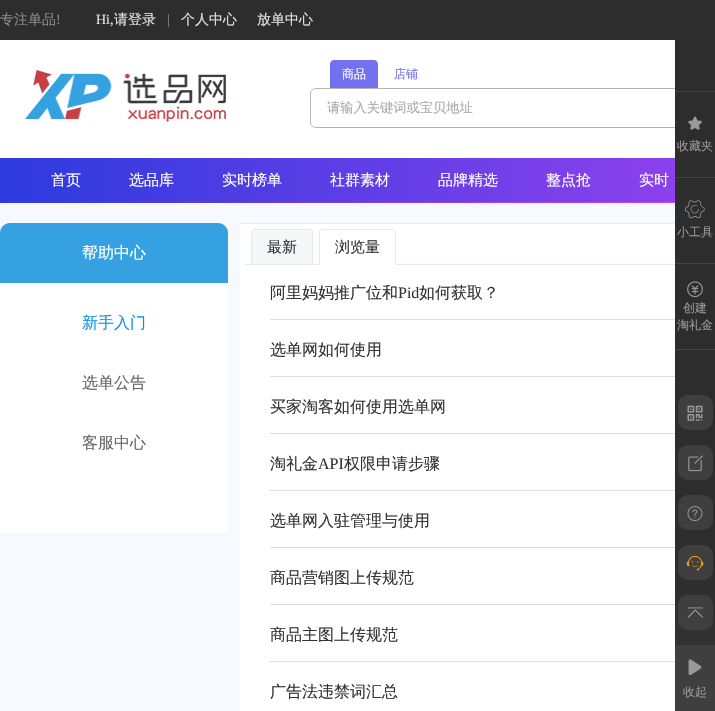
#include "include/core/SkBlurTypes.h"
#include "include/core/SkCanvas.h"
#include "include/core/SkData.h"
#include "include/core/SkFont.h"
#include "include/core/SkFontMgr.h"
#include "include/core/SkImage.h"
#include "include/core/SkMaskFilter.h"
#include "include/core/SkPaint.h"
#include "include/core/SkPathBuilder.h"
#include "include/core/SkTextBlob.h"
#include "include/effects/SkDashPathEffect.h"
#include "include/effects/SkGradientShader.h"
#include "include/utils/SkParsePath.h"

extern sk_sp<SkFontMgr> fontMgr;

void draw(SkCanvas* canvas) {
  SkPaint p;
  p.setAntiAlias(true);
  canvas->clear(SkColorSetRGB(246, 249, 254));
  p.setColor(SkColorSetRGB(45, 45, 45));
  canvas->drawRect(SkRect::MakeLTRB(0, 0, 675, 40), p);
  p.setColor(SK_ColorWHITE);
  canvas->drawRect(SkRect::MakeLTRB(0, 40, 675, 158), p);
  canvas->drawImageRect(SkImages::DeferredFromEncodedData(SkData::MakeFromFileName("images/1.png")), SkRect::MakeLTRB(25, 70, 226, 122), SkSamplingOptions());
  p.setColor(SkColorSetRGB(115, 113, 239));
  canvas->drawPath(SkPathBuilder().moveTo(334, 60).lineTo(374, 60).cubicTo(376, 60, 378, 62, 378, 64).lineTo(378, 88).lineTo(330, 88).lineTo(330, 64).cubicTo(330, 62, 332, 60, 334, 60).close().detach(), p);
  p.setColor(SkColorSetRGB(181, 181, 181));
  canvas->drawPath(SkPathBuilder(SkPathFillType::kEvenOdd).moveTo(316, 88).lineTo(710, 88).lineTo(710, 128).lineTo(316, 128).cubicTo(313, 128, 310, 125, 310, 122).lineTo(310, 94).cubicTo(310, 91, 313, 88, 316, 88).close().moveTo(316, 89).lineTo(710, 89).lineTo(710, 127).lineTo(316, 127).cubicTo(313, 127, 311, 125, 311, 122).lineTo(311, 94).cubicTo(311, 91, 313, 89, 316, 89).close().detach(), p);
  {
    const SkColor colors[] = {SkColorSetRGB(44, 59, 222), SkColorSetRGB(214, 69, 248)};
    const float stops[] = {0, 1};
    const SkPoint ends[] = {{0, 181}, {715, 180}};
    p.setShader(SkGradientShader::MakeLinear(ends, colors, stops, 2, SkTileMode::kClamp));
    p.setAlpha(255);
  }
  canvas->drawRect(SkRect::MakeLTRB(0, 202, 675, 203), p);
  {
    const SkColor colors[] = {SkColorSetRGB(44, 59, 222), SkColorSetRGB(214, 69, 248)};
    const float stops[] = {0, 1};
    const SkPoint ends[] = {{0, 180}, {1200, 180}};
    p.setShader(SkGradientShader::MakeLinear(ends, colors, stops, 2, SkTileMode::kClamp));
    p.setAlpha(255);
  }
  canvas->drawRect(SkRect::MakeLTRB(0, 158, 675, 202), p);
  p.setShader(nullptr);
  p.setColor(SK_ColorWHITE);
  canvas->drawPath(SkPathBuilder().moveTo(10, 223).lineTo(218, 223).cubicTo(223.5f, 223, 228, 227.5f, 228, 233).lineTo(228, 533).lineTo(0, 533).lineTo(0, 233).cubicTo(0, 227.5f, 4.5f, 223, 10, 223).close().detach(), p);
  p.setColor(SkColorSetRGB(53, 161, 225));
  canvas->drawPath(SkPathBuilder().moveTo(10, 223).lineTo(218, 223).cubicTo(223.5f, 223, 228, 227.5f, 228, 233).lineTo(228, 283).lineTo(0, 283).lineTo(0, 233).cubicTo(0, 227.5f, 4.5f, 223, 10, 223).close().detach(), p);
  p.setColor(SK_ColorWHITE);
  canvas->drawRect(SkRect::MakeLTRB(240, 224, 675, 711), p);
  p.setColor(SkColorSetRGB(226, 234, 236));
  canvas->drawRect(SkRect::MakeLTRB(240, 223, 675, 224), p);
  canvas->drawRect(SkRect::MakeLTRB(245, 264, 675, 265), p);
  p.setColor(SkColorSetRGB(244, 248, 249));
  canvas->drawPath(SkPathBuilder().moveTo(254, 229.5f).lineTo(310, 229.5f).cubicTo(311.5f, 229.5f, 312.5f, 230.5f, 312.5f, 232).lineTo(312.5f, 264.5f).lineTo(251.5f, 264.5f).lineTo(251.5f, 232).cubicTo(251.5f, 230.5f, 252.5f, 229.5f, 254, 229.5f).close().detach(), p);
  p.setStyle(SkPaint::kStroke_Style);
  p.setStrokeWidth(1);
  p.setColor(SkColorSetRGB(226, 234, 236));
  canvas->drawPath(SkPathBuilder().moveTo(254, 229.5f).lineTo(310, 229.5f).cubicTo(311.5f, 229.5f, 312.5f, 230.5f, 312.5f, 232).lineTo(312.5f, 264.5f).lineTo(251.5f, 264.5f).lineTo(251.5f, 232).cubicTo(251.5f, 230.5f, 252.5f, 229.5f, 254, 229.5f).close().detach(), p);
  p.setStyle(SkPaint::kFill_Style);
  p.setColor(SK_ColorWHITE);
  canvas->drawPath(SkPathBuilder().moveTo(322, 229).lineTo(393, 229).cubicTo(394.5f, 229, 396, 230.5f, 396, 232).lineTo(396, 265).lineTo(319, 265).lineTo(319, 232).cubicTo(319, 230.5f, 320.5f, 229, 322, 229).close().detach(), p);
  p.setColor(SkColorSetRGB(226, 234, 236));
  canvas->drawPath(SkPathBuilder().moveTo(322, 229).lineTo(320, 230).lineTo(321, 231).lineTo(322, 230).lineTo(393, 230).lineTo(394, 231).lineTo(395, 230).lineTo(393, 229).close().detach(), p);
  canvas->drawPath(SkPathBuilder().moveTo(396, 265).lineTo(396, 232).cubicTo(396, 231, 396, 230, 395, 230).lineTo(394.5f, 230.5f).lineTo(395, 232).lineTo(395, 264).close().detach(), p);
  p.setColor(SK_ColorWHITE);
  canvas->drawPath(SkPathBuilder().moveTo(396, 265).lineTo(395, 264).lineTo(320, 264).lineTo(319, 265).close().detach(), p);
  p.setColor(SkColorSetRGB(226, 234, 236));
  canvas->drawPath(SkPathBuilder().moveTo(319, 265).lineTo(320, 264).lineTo(320, 232).lineTo(320.5f, 230.5f).lineTo(320, 230).cubicTo(319, 230, 319, 231, 319, 232).close().detach(), p);
  p.setColor(SkColorSetRGB(221, 221, 221));
  canvas->drawRect(SkRect::MakeLTRB(270, 319, 675, 320), p);
  canvas->drawRect(SkRect::MakeLTRB(270, 376, 675, 377), p);
  canvas->drawRect(SkRect::MakeLTRB(270, 433, 675, 434), p);
  canvas->drawRect(SkRect::MakeLTRB(270, 490, 675, 491), p);
  canvas->drawRect(SkRect::MakeLTRB(270, 547, 675, 548), p);
  canvas->drawRect(SkRect::MakeLTRB(270, 604, 675, 605), p);
  canvas->drawRect(SkRect::MakeLTRB(270, 661, 675, 662), p);
  {
    const SkColor colors[] = {SkColorSetRGB(45, 45, 45), SkColorSetRGB(55, 55, 55)};
    const float stops[] = {0.8f, 1};
    const SkPoint ends[] = {{695, 0}, {695, 711}};
    p.setShader(SkGradientShader::MakeLinear(ends, colors, stops, 2, SkTileMode::kClamp));
    p.setAlpha(255);
  }
  canvas->drawRect(SkRect::MakeLTRB(675, 0, 715, 645), p);
  p.setShader(nullptr);
  p.setColor(SkColorSetRGB(68, 68, 68));
  canvas->drawRect(SkRect::MakeLTRB(675, 91, 715, 92), p);
  canvas->drawRect(SkRect::MakeLTRB(675, 177, 715, 178), p);
  canvas->drawImageRect(SkImages::DeferredFromEncodedData(SkData::MakeFromFileName("images/2.png")), SkRect::MakeLTRB(688, 116, 702, 130), SkSamplingOptions());
  canvas->drawRect(SkRect::MakeLTRB(675, 263, 715, 264), p);
  canvas->drawImageRect(SkImages::DeferredFromEncodedData(SkData::MakeFromFileName("images/3.png")), SkRect::MakeLTRB(685, 200, 705, 219), SkSamplingOptions());
  canvas->drawRect(SkRect::MakeLTRB(675, 349, 715, 350), p);
  canvas->drawImageRect(SkImages::DeferredFromEncodedData(SkData::MakeFromFileName("images/4.png")), SkRect::MakeLTRB(687, 281, 703, 298), SkSamplingOptions());
  p.setColor(SkColorSetRGB(63, 63, 63));
  canvas->drawRoundRect(SkRect::MakeLTRB(678, 395, 713, 430), 10, 10, p);
  canvas->drawImageRect(SkImages::DeferredFromEncodedData(SkData::MakeFromFileName("images/5.png")), SkRect::MakeLTRB(687, 405, 703, 421), SkSamplingOptions());
  canvas->drawRoundRect(SkRect::MakeLTRB(678, 445, 713, 480), 10, 10, p);
  canvas->drawImageRect(SkImages::DeferredFromEncodedData(SkData::MakeFromFileName("images/6.png")), SkRect::MakeLTRB(688, 455, 703, 472), SkSamplingOptions());
  canvas->drawRoundRect(SkRect::MakeLTRB(678, 495, 713, 530), 10, 10, p);
  canvas->drawImageRect(SkImages::DeferredFromEncodedData(SkData::MakeFromFileName("images/7.png")), SkRect::MakeLTRB(687, 506, 703, 521), SkSamplingOptions());
  canvas->drawRoundRect(SkRect::MakeLTRB(678, 545, 713, 580), 10, 10, p);
  canvas->drawImageRect(SkImages::DeferredFromEncodedData(SkData::MakeFromFileName("images/8.png")), SkRect::MakeLTRB(686, 555, 704, 571), SkSamplingOptions());
  canvas->drawRoundRect(SkRect::MakeLTRB(678, 595, 713, 630), 10, 10, p);
  canvas->drawImageRect(SkImages::DeferredFromEncodedData(SkData::MakeFromFileName("images/9.png")), SkRect::MakeLTRB(687, 607, 703, 618), SkSamplingOptions());
  canvas->drawRect(SkRect::MakeLTRB(675, 645, 715, 711), p);
  canvas->drawImageRect(SkImages::DeferredFromEncodedData(SkData::MakeFromFileName("images/10.png")), SkRect::MakeLTRB(688, 659, 702, 675), SkSamplingOptions());
  SkFont font1(fontMgr->matchFamilyStyle("WenQuanYi Zen Hei", SkFontStyle(500, SkFontStyle::kNormal_Width, SkFontStyle::kUpright_Slant)), 14);
  font1.setSubpixel(true);
  p.setColor(SkColorSetRGB(139, 139, 139));
  canvas->drawString("专注单品", 0, 24, font1, p);
  SkFont font2(fontMgr->matchFamilyStyle("Liberation Serif", SkFontStyle::Normal()), 14);
  font2.setSubpixel(true);
  canvas->drawString("!", 56, 24, font2, p);
  p.setColor(SkColorSetRGB(225, 225, 225));
  canvas->drawString("Hi,", 96, 24, font2, p);
  canvas->drawString("请登录", 114, 24, font1, p);
  p.setColor(SkColorSetRGB(139, 139, 139));
  canvas->drawString("|", 167, 24, font2, p);
  p.setColor(SkColorSetRGB(225, 225, 225));
  canvas->drawString("个人中心", 181, 24, font1, p);
  canvas->drawString("放单中心", 257, 24, font1, p);
  SkFont font3(fontMgr->matchFamilyStyle("WenQuanYi Zen Hei", SkFontStyle(500, SkFontStyle::kNormal_Width, SkFontStyle::kUpright_Slant)), 12);
  font3.setSubpixel(true);
  p.setColor(SK_ColorWHITE);
  canvas->drawString("商品", 342, 78, font3, p);
  p.setColor(SkColorSetRGB(115, 113, 239));
  canvas->drawString("店铺", 394, 78, font3, p);
  SkFont font4(fontMgr->matchFamilyStyle("WenQuanYi Zen Hei", SkFontStyle(500, SkFontStyle::kNormal_Width, SkFontStyle::kUpright_Slant)), 13.25f);
  font4.setSubpixel(true);
  p.setColor(SkColorSetRGB(169, 169, 169));
  canvas->drawString("请输入关键词或宝贝地址", 327, 112, font4, p);
  SkFont font5(fontMgr->matchFamilyStyle("WenQuanYi Zen Hei", SkFontStyle(500, SkFontStyle::kNormal_Width, SkFontStyle::kUpright_Slant)), 15);
  font5.setSubpixel(true);
  p.setColor(SK_ColorWHITE);
  canvas->drawString("首页", 51, 185, font5, p);
  canvas->drawString("选品库", 129, 185, font5, p);
  canvas->drawString("实时榜单", 222, 185, font5, p);
  canvas->drawString("社群素材", 330, 185, font5, p);
  canvas->drawString("品牌精选", 438, 185, font5, p);
  canvas->drawString("整点抢", 546, 185, font5, p);
  canvas->drawString("实时", 639, 185, font5, p);
  SkFont font6(fontMgr->matchFamilyStyle("WenQuanYi Zen Hei", SkFontStyle(500, SkFontStyle::kNormal_Width, SkFontStyle::kUpright_Slant)), 16);
  font6.setSubpixel(true);
  canvas->drawString("帮助中心", 82, 258, font6, p);
  p.setColor(SkColorSetRGB(11, 148, 230));
  canvas->drawString("新手入门", 82, 328, font6, p);
  p.setColor(SkColorSetRGB(102, 102, 102));
  canvas->drawString("选单公告", 82, 388, font6, p);
  canvas->drawString("客服中心", 82, 448, font6, p);
  p.setColor(SkColorSetRGB(51, 51, 51));
  canvas->drawString("最新", 267, 252, font5, p);
  canvas->drawString("浏览量", 335, 252, font5, p);
  canvas->drawString("阿里妈妈推广位和", 270, 298, font6, p);
  SkFont font7(fontMgr->matchFamilyStyle("Liberation Serif", SkFontStyle::Normal()), 16);
  font7.setSubpixel(true);
  canvas->drawString("Pid", 398, 298, font7, p);
  canvas->drawString("如何获取？", 419, 298, font6, p);
  canvas->drawString("选单网如何使用", 270, 355, font6, p);
  canvas->drawString("买家淘客如何使用选单网", 270, 412, font6, p);
  canvas->drawString("淘礼金", 270, 469, font6, p);
  canvas->drawString("API", 318, 469, font7, p);
  canvas->drawString("权限申请步骤", 344, 469, font6, p);
  canvas->drawString("选单网入驻管理与使用", 270, 526, font6, p);
  canvas->drawString("商品营销图上传规范", 270, 583, font6, p);
  canvas->drawString("商品主图上传规范", 270, 640, font6, p);
  canvas->drawString("广告法违禁词汇总", 270, 697, font6, p);
  p.setColor(SkColorSetRGB(153, 153, 153));
  canvas->drawString("收藏夹", 677, 150, font3, p);
  canvas->drawString("小工具", 677, 236, font3, p);
  canvas->drawString("创建", 683, 312, font3, p);
  canvas->drawString("淘礼金", 677, 329, font3, p);
  canvas->drawString("收起", 683, 696, font3, p);
}
